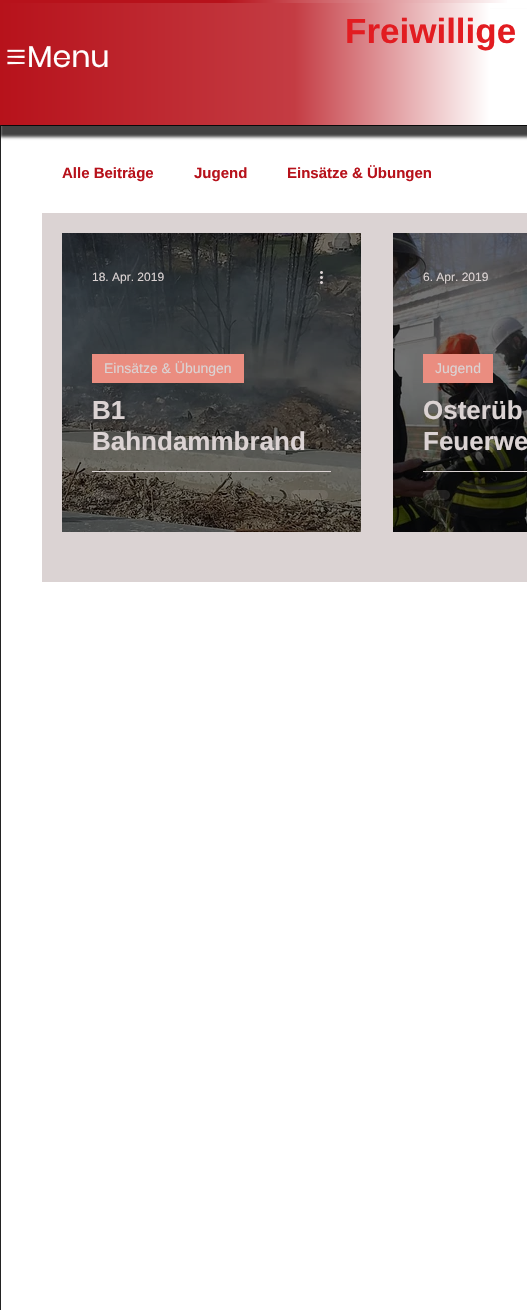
#include "include/core/SkBlurTypes.h"
#include "include/core/SkCanvas.h"
#include "include/core/SkData.h"
#include "include/core/SkFont.h"
#include "include/core/SkFontMgr.h"
#include "include/core/SkImage.h"
#include "include/core/SkMaskFilter.h"
#include "include/core/SkPaint.h"
#include "include/core/SkPathBuilder.h"
#include "include/core/SkTextBlob.h"
#include "include/effects/SkDashPathEffect.h"
#include "include/effects/SkGradientShader.h"
#include "include/utils/SkParsePath.h"

extern sk_sp<SkFontMgr> fontMgr;

void draw(SkCanvas* canvas) {
  SkPaint p;
  p.setAntiAlias(true);
  canvas->clear(SK_ColorWHITE);
  p.setStyle(SkPaint::kStroke_Style);
  p.setStrokeWidth(1);
  p.setColor(SkColorSetRGB(35, 35, 35));
  canvas->drawRect(SkRect::MakeLTRB(0.5f, 125.5f, 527.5f, 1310.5f), p);
  p.setStyle(SkPaint::kFill_Style);
  p.setColor(SkColorSetARGB(189, 0, 0, 0));
  p.setMaskFilter(SkMaskFilter::MakeBlur(kNormal_SkBlurStyle, 1.5f));
  canvas->drawRect(SkRect::MakeLTRB(0, 12, 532, 137), p);
  p.setMaskFilter(nullptr);
  {
    const SkColor colors[] = {SkColorSetRGB(183, 18, 27), SK_ColorWHITE};
    const float stops[] = {0.23f, 0.52f};
    const SkPoint ends[] = {{0, 63}, {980, 62}};
    p.setShader(SkGradientShader::MakeLinear(ends, colors, stops, 2, SkTileMode::kClamp));
    p.setAlpha(255);
  }
  canvas->drawRect(SkRect::MakeLTRB(0, 0, 507, 3), p);
  p.setShader(nullptr);
  p.setColor(SK_ColorWHITE);
  canvas->drawRect(SkRect::MakeLTRB(490, 9, 527, 125), p);
  {
    const SkColor colors[] = {SkColorSetRGB(183, 18, 27), SkColorSetRGB(196, 60, 67), SK_ColorWHITE};
    const float stops[] = {0, 0.6f, 1};
    const SkPoint ends[] = {{0, 64}, {490, 64}};
    p.setShader(SkGradientShader::MakeLinear(ends, colors, stops, 3, SkTileMode::kClamp));
    p.setAlpha(255);
  }
  canvas->drawRect(SkRect::MakeLTRB(0, 3, 490, 125), p);
  canvas->drawImageRect(SkImages::DeferredFromEncodedData(SkData::MakeFromFileName("images/1.png")), SkRect::MakeLTRB(7, 49, 25, 65), SkSamplingOptions());
  p.setShader(nullptr);
  p.setColor(SkColorSetRGB(219, 211, 211));
  canvas->drawRect(SkRect::MakeLTRB(42, 213, 527, 582), p);
  canvas->drawImageRect(SkImages::DeferredFromEncodedData(SkData::MakeFromFileName("images/2.png")), SkRect::MakeLTRB(62, 233, 361, 532), SkSamplingOptions());
  canvas->drawImageRect(SkImages::DeferredFromEncodedData(SkData::MakeFromFileName("images/3.png")), SkRect::MakeLTRB(320, 271, 323, 284), SkSamplingOptions());
  p.setColor(SkColorSetRGB(234, 141, 128));
  canvas->drawRect(SkRect::MakeLTRB(92, 354, 244, 383), p);
  p.setColor(SkColorSetRGB(219, 211, 211));
  canvas->drawRect(SkRect::MakeLTRB(92, 471, 331, 472), p);
  p.setColor(SkColorSetARGB(31, 219, 211, 211));
  canvas->drawRoundRect(SkRect::MakeLTRB(92, 490, 119, 500), 5, 5, p);
  canvas->drawRoundRect(SkRect::MakeLTRB(291, 490, 328, 500), 5, 5, p);
  canvas->drawImageRect(SkImages::DeferredFromEncodedData(SkData::MakeFromFileName("images/4.png")), SkRect::MakeLTRB(393, 233, 527, 532), SkSamplingOptions());
  p.setColor(SkColorSetRGB(234, 141, 128));
  canvas->drawRect(SkRect::MakeLTRB(423, 354, 493, 383), p);
  p.setColor(SkColorSetRGB(219, 211, 211));
  canvas->drawRect(SkRect::MakeLTRB(423, 471, 527, 472), p);
  p.setColor(SkColorSetARGB(31, 219, 211, 211));
  canvas->drawRoundRect(SkRect::MakeLTRB(423, 490, 450, 500), 5, 5, p);
  SkFont font1(fontMgr->matchFamilyStyle("Liberation Sans", SkFontStyle::Bold()), 35);
  font1.setSubpixel(true);
  p.setColor(SkColorSetRGB(226, 28, 33));
  canvas->drawString("Freiwillige", 345, 43, font1, p);
  SkFont font2(fontMgr->matchFamilyStyle("Poppins", SkFontStyle::Normal()), 30);
  font2.setSubpixel(true);
  p.setColor(SK_ColorWHITE);
  canvas->drawString("Menu", 27, 67, font2, p);
  SkFont font3(fontMgr->matchFamilyStyle("Liberation Sans", SkFontStyle::Bold()), 15);
  font3.setSubpixel(true);
  p.setColor(SkColorSetRGB(183, 18, 27));
  canvas->drawString("Alle Beiträge", 62, 178, font3, p);
  canvas->drawString("Jugend", 194, 178, font3, p);
  canvas->drawString("Einsätze & Übungen", 287, 178, font3, p);
  SkFont font4(fontMgr->matchFamilyStyle("Liberation Sans", SkFontStyle::Normal()), 12);
  font4.setSubpixel(true);
  p.setColor(SkColorSetRGB(219, 211, 211));
  canvas->drawString("18. Apr. 2019", 92, 281, font4, p);
  SkFont font5(fontMgr->matchFamilyStyle("Liberation Sans", SkFontStyle::Normal()), 14);
  font5.setSubpixel(true);
  canvas->drawString("Einsätze & Übungen", 104, 373, font5, p);
  SkFont font6(fontMgr->matchFamilyStyle("Liberation Sans", SkFontStyle::Bold()), 26);
  font6.setSubpixel(true);
  canvas->drawString("B1", 92, 419, font6, p);
  canvas->drawString("Bahndammbrand", 92, 450, font6, p);
  canvas->drawString("6. Apr. 2019", 423, 281, font4, p);
  canvas->drawString("Jugend", 435, 373, font5, p);
  canvas->drawString("Osterüb", 423, 419, font6, p);
  canvas->drawString("Feuerwe", 423, 450, font6, p);
}
